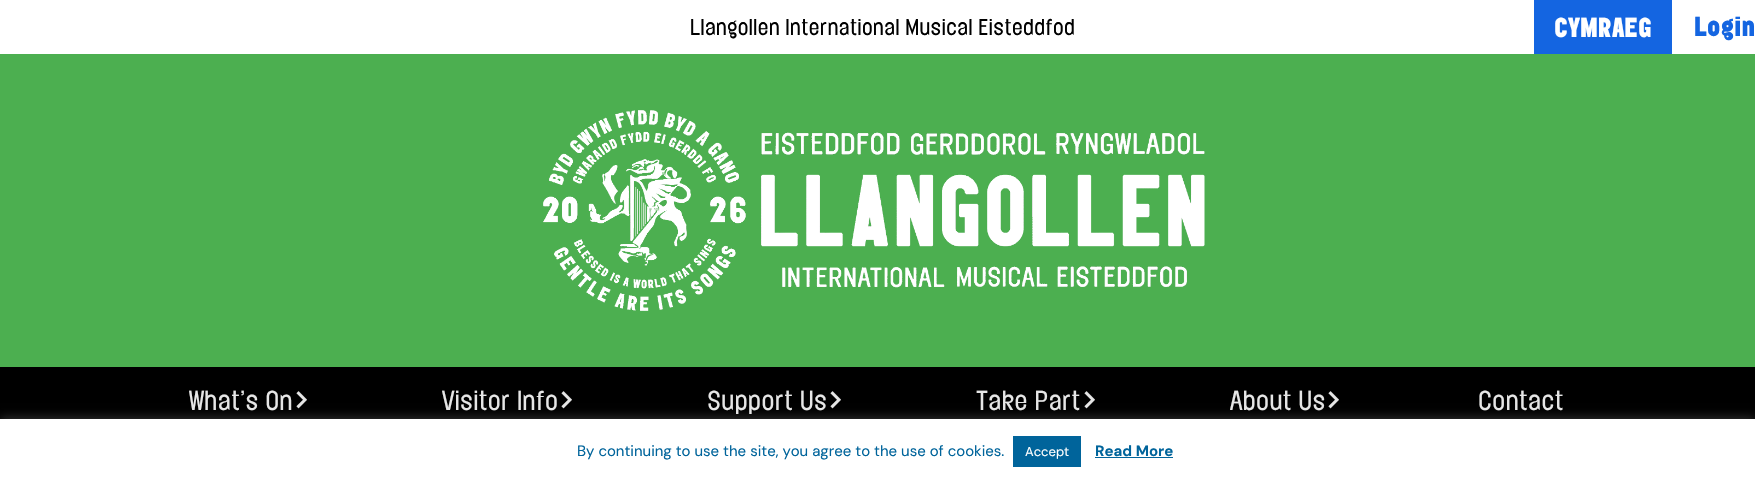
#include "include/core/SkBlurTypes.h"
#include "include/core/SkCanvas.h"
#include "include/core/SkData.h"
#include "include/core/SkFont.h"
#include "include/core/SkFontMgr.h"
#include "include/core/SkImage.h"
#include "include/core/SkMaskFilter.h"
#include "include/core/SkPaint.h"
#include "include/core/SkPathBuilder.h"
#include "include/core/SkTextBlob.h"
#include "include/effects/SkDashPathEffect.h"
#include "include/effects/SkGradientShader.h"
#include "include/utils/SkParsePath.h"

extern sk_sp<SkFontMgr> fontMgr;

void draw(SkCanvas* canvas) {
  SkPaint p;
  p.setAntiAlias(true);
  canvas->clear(SK_ColorWHITE);
  p.setColor(SkColorSetRGB(76, 175, 80));
  canvas->drawRect(SkRect::MakeLTRB(0, 54, 1755, 367), p);
  canvas->drawImageRect(SkImages::DeferredFromEncodedData(SkData::MakeFromFileName("images/1.png")), SkRect::MakeLTRB(543, 110, 1205, 311), SkSamplingOptions());
  p.setColor(SkColorSetRGB(20, 101, 225));
  canvas->drawRect(SkRect::MakeLTRB(1534, 0, 1672, 54), p);
  p.setColor(SK_ColorBLACK);
  canvas->drawRect(SkRect::MakeLTRB(0, 367, 1755, 419), p);
  p.setColor(SkColorSetARGB(77, 172, 171, 171));
  p.setMaskFilter(SkMaskFilter::MakeBlur(kNormal_SkBlurStyle, 5));
  canvas->drawRect(SkRect::MakeLTRB(0, 418, 1755, 483), p);
  p.setMaskFilter(nullptr);
  p.setColor(SK_ColorWHITE);
  canvas->drawRect(SkRect::MakeLTRB(0, 419, 1755, 484), p);
  p.setColor(SkColorSetRGB(0, 100, 155));
  canvas->drawRect(SkRect::MakeLTRB(1013, 436, 1081, 467), p);
  canvas->drawRect(SkRect::MakeLTRB(1095, 457, 1173, 458), p);
  SkFont font1(fontMgr->matchFamilyStyle("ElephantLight", SkFontStyle(300, SkFontStyle::kNormal_Width, SkFontStyle::kUpright_Slant)), 20);
  font1.setSubpixel(true);
  p.setColor(SK_ColorBLACK);
  canvas->drawString("Llangollen International Musical Eisteddfod", 690, 35, font1, p);
  SkFont font2(fontMgr->matchFamilyStyle("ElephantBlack", SkFontStyle(900, SkFontStyle::kNormal_Width, SkFontStyle::kUpright_Slant)), 24);
  font2.setSubpixel(true);
  p.setColor(SK_ColorWHITE);
  canvas->drawString("CYMRAEG", 1554, 37, font2, p);
  p.setColor(SkColorSetRGB(20, 101, 225));
  canvas->drawString("Login", 1694, 36, font2, p);
  SkFont font3(fontMgr->matchFamilyStyle("ElephantLight", SkFontStyle(300, SkFontStyle::kNormal_Width, SkFontStyle::kUpright_Slant)), 24);
  font3.setSubpixel(true);
  p.setColor(SkColorSetRGB(230, 230, 230));
  canvas->drawString("What’s On", 189, 410, font3, p);
  SkFont font4(fontMgr->matchFamilyStyle("ElephantLight", SkFontStyle(300, SkFontStyle::kNormal_Width, SkFontStyle::kUpright_Slant)), 29);
  font4.setSubpixel(true);
  canvas->drawString(">", 296, 410, font4, p);
  canvas->drawString("Visitor Info", 442, 410, font3, p);
  canvas->drawString(">", 561, 410, font4, p);
  canvas->drawString("Support Us", 707, 410, font3, p);
  canvas->drawString(">", 830, 410, font4, p);
  canvas->drawString("Take Part", 976, 410, font3, p);
  canvas->drawString(">", 1084, 410, font4, p);
  canvas->drawString("About Us", 1230, 410, font3, p);
  canvas->drawString(">", 1328, 410, font4, p);
  canvas->drawString("Contact", 1478, 410, font3, p);
  SkFont font5(fontMgr->matchFamilyStyle("DM Sans", SkFontStyle::Normal()), 15);
  font5.setSubpixel(true);
  p.setColor(SkColorSetRGB(0, 100, 155));
  canvas->drawString("By continuing to use the site, you agree to the use of cookies.", 577, 456, font5, p);
  SkFont font6(fontMgr->matchFamilyStyle("DM Sans", SkFontStyle::Normal()), 13);
  font6.setSubpixel(true);
  p.setColor(SK_ColorWHITE);
  canvas->drawString("Accept", 1025, 456, font6, p);
  SkFont font7(fontMgr->matchFamilyStyle("DM Sans", SkFontStyle::Bold()), 15);
  font7.setSubpixel(true);
  p.setColor(SkColorSetRGB(0, 100, 155));
  canvas->drawString("Read More", 1095, 456, font7, p);
}
